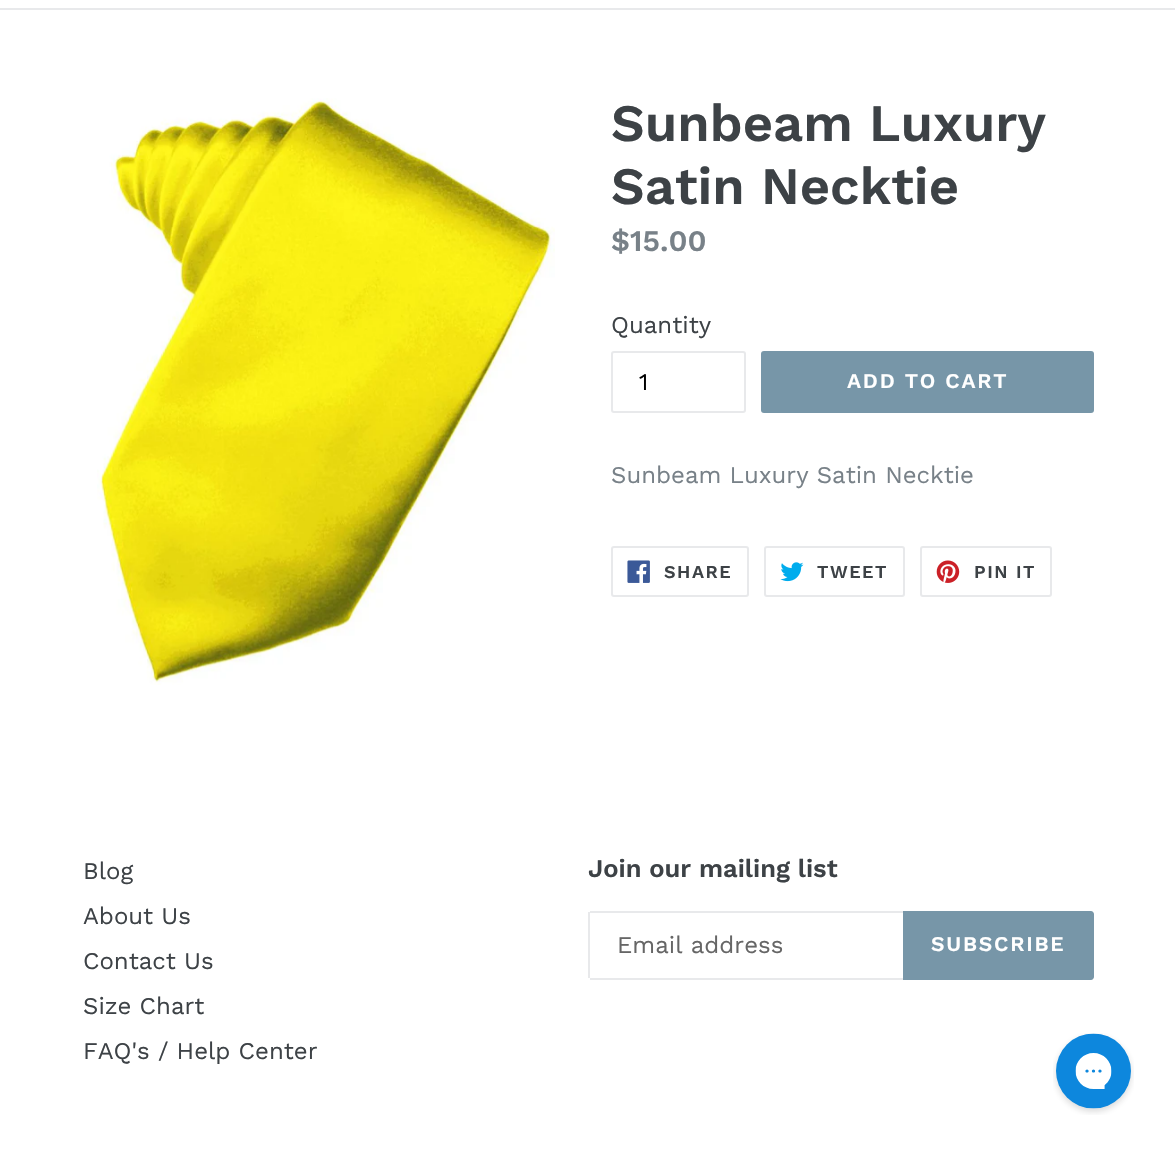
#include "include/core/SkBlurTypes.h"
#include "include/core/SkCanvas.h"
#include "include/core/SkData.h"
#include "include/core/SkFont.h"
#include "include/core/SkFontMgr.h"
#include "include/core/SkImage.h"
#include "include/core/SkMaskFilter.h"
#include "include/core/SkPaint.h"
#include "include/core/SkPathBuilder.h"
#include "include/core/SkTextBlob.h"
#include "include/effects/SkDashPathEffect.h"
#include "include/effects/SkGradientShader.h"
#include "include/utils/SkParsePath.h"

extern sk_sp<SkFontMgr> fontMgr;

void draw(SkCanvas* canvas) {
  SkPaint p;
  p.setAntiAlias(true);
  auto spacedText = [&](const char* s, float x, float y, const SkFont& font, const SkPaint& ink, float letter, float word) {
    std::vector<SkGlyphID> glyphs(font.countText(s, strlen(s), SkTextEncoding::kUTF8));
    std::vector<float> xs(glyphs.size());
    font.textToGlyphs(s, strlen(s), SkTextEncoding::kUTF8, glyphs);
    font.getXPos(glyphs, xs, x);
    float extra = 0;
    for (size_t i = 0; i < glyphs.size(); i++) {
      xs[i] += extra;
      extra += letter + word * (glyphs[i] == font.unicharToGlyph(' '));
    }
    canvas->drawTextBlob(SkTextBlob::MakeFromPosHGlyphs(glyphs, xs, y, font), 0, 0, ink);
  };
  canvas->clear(SK_ColorWHITE);
  p.setColor(SkColorSetRGB(232, 233, 235));
  canvas->drawRect(SkRect::MakeLTRB(0, 8, 1175, 10), p);
  canvas->drawImageRect(SkImages::DeferredFromEncodedData(SkData::MakeFromFileName("images/1.png")), SkRect::MakeLTRB(97, 98, 555, 685), SkSamplingOptions());
  p.setStyle(SkPaint::kStroke_Style);
  p.setStrokeWidth(2);
  canvas->drawRoundRect(SkRect::MakeLTRB(612, 352, 745, 412), 2, 2, p);
  p.setStyle(SkPaint::kFill_Style);
  p.setColor(SkColorSetRGB(119, 150, 168));
  canvas->drawRoundRect(SkRect::MakeLTRB(761, 351, 1094, 413), 3, 3, p);
  p.setStyle(SkPaint::kStroke_Style);
  p.setColor(SkColorSetRGB(232, 233, 235));
  canvas->drawRoundRect(SkRect::MakeLTRB(612, 547, 748, 596), 2, 2, p);
  canvas->drawImageRect(SkImages::DeferredFromEncodedData(SkData::MakeFromFileName("images/2.png")), SkRect::MakeLTRB(627, 560, 650, 583), SkSamplingOptions());
  canvas->drawRoundRect(SkRect::MakeLTRB(765, 547, 904, 596), 2, 2, p);
  canvas->drawImageRect(SkImages::DeferredFromEncodedData(SkData::MakeFromFileName("images/3.png")), SkRect::MakeLTRB(780, 562, 804, 582), SkSamplingOptions());
  canvas->drawRoundRect(SkRect::MakeLTRB(921, 547, 1051, 596), 2, 2, p);
  canvas->drawImageRect(SkImages::DeferredFromEncodedData(SkData::MakeFromFileName("images/4.png")), SkRect::MakeLTRB(936, 560, 960, 583), SkSamplingOptions());
  p.setStyle(SkPaint::kFill_Style);
  canvas->drawRect(SkRect::MakeLTRB(590, 911, 903, 913), p);
  canvas->drawRect(SkRect::MakeLTRB(590, 978, 903, 980), p);
  canvas->drawRect(SkRect::MakeLTRB(588, 912, 590, 978), p);
  p.setColor(SkColorSetRGB(119, 150, 168));
  canvas->drawPath(SkPathBuilder().moveTo(903, 911).lineTo(1091, 911).cubicTo(1092.5f, 911, 1094, 912.5f, 1094, 914).lineTo(1094, 977).cubicTo(1094, 978.5f, 1092.5f, 980, 1091, 980).lineTo(903, 980).close().detach(), p);
  canvas->drawImageRect(SkImages::DeferredFromEncodedData(SkData::MakeFromFileName("images/5.png")), SkRect::MakeLTRB(1053, 1033, 1134, 1115), SkSamplingOptions());
  SkFont font1(fontMgr->matchFamilyStyle("Work Sans", SkFontStyle(600, SkFontStyle::kNormal_Width, SkFontStyle::kUpright_Slant)), 52.5f);
  font1.setSubpixel(true);
  p.setColor(SkColorSetRGB(61, 66, 70));
  canvas->drawString("Sunbeam Luxury", 611, 141, font1, p);
  canvas->drawString("Satin Necktie", 611, 204, font1, p);
  SkFont font2(fontMgr->matchFamilyStyle("Work Sans", SkFontStyle(600, SkFontStyle::kNormal_Width, SkFontStyle::kUpright_Slant)), 30);
  font2.setSubpixel(true);
  p.setColor(SkColorSetRGB(120, 129, 136));
  canvas->drawString("$15.00", 611, 251, font2, p);
  SkFont font3(fontMgr->matchFamilyStyle("Work Sans", SkFontStyle::Normal()), 24);
  font3.setSubpixel(true);
  p.setColor(SkColorSetRGB(61, 66, 70));
  canvas->drawString("Quantity", 611, 333, font3, p);
  p.setColor(SK_ColorBLACK);
  canvas->drawString("1", 639, 390, font3, p);
  SkFont font4(fontMgr->matchFamilyStyle("Work Sans", SkFontStyle(600, SkFontStyle::kNormal_Width, SkFontStyle::kUpright_Slant)), 21);
  font4.setSubpixel(true);
  p.setColor(SK_ColorWHITE);
  spacedText("ADD TO CART", 847, 388, font4, p, 1.75f, 0);
  p.setColor(SkColorSetRGB(120, 129, 136));
  canvas->drawString("Sunbeam Luxury Satin Necktie", 611, 483, font3, p);
  SkFont font5(fontMgr->matchFamilyStyle("Work Sans", SkFontStyle(600, SkFontStyle::kNormal_Width, SkFontStyle::kUpright_Slant)), 18);
  font5.setSubpixel(true);
  p.setColor(SkColorSetRGB(61, 66, 70));
  spacedText("SHARE", 664, 578, font5, p, 1.5f, 0);
  spacedText("TWEET", 817, 578, font5, p, 1.5f, 0);
  spacedText("PIN IT", 974, 578, font5, p, 1.5f, 0);
  canvas->drawString("Blog", 83, 879, font3, p);
  canvas->drawString("About Us", 83, 924, font3, p);
  canvas->drawString("Contact Us", 83, 969, font3, p);
  canvas->drawString("Size Chart", 83, 1014, font3, p);
  canvas->drawString("FAQ's / Help Center", 83, 1059, font3, p);
  SkFont font6(fontMgr->matchFamilyStyle("Work Sans", SkFontStyle(600, SkFontStyle::kNormal_Width, SkFontStyle::kUpright_Slant)), 25.5f);
  font6.setSubpixel(true);
  canvas->drawString("Join our mailing list", 588, 877, font6, p);
  p.setColor(SkColorSetRGB(102, 102, 102));
  canvas->drawString("Email address", 617, 953, font3, p);
  p.setColor(SK_ColorWHITE);
  spacedText("SUBSCRIBE", 931, 951, font4, p, 1.75f, 0);
}
